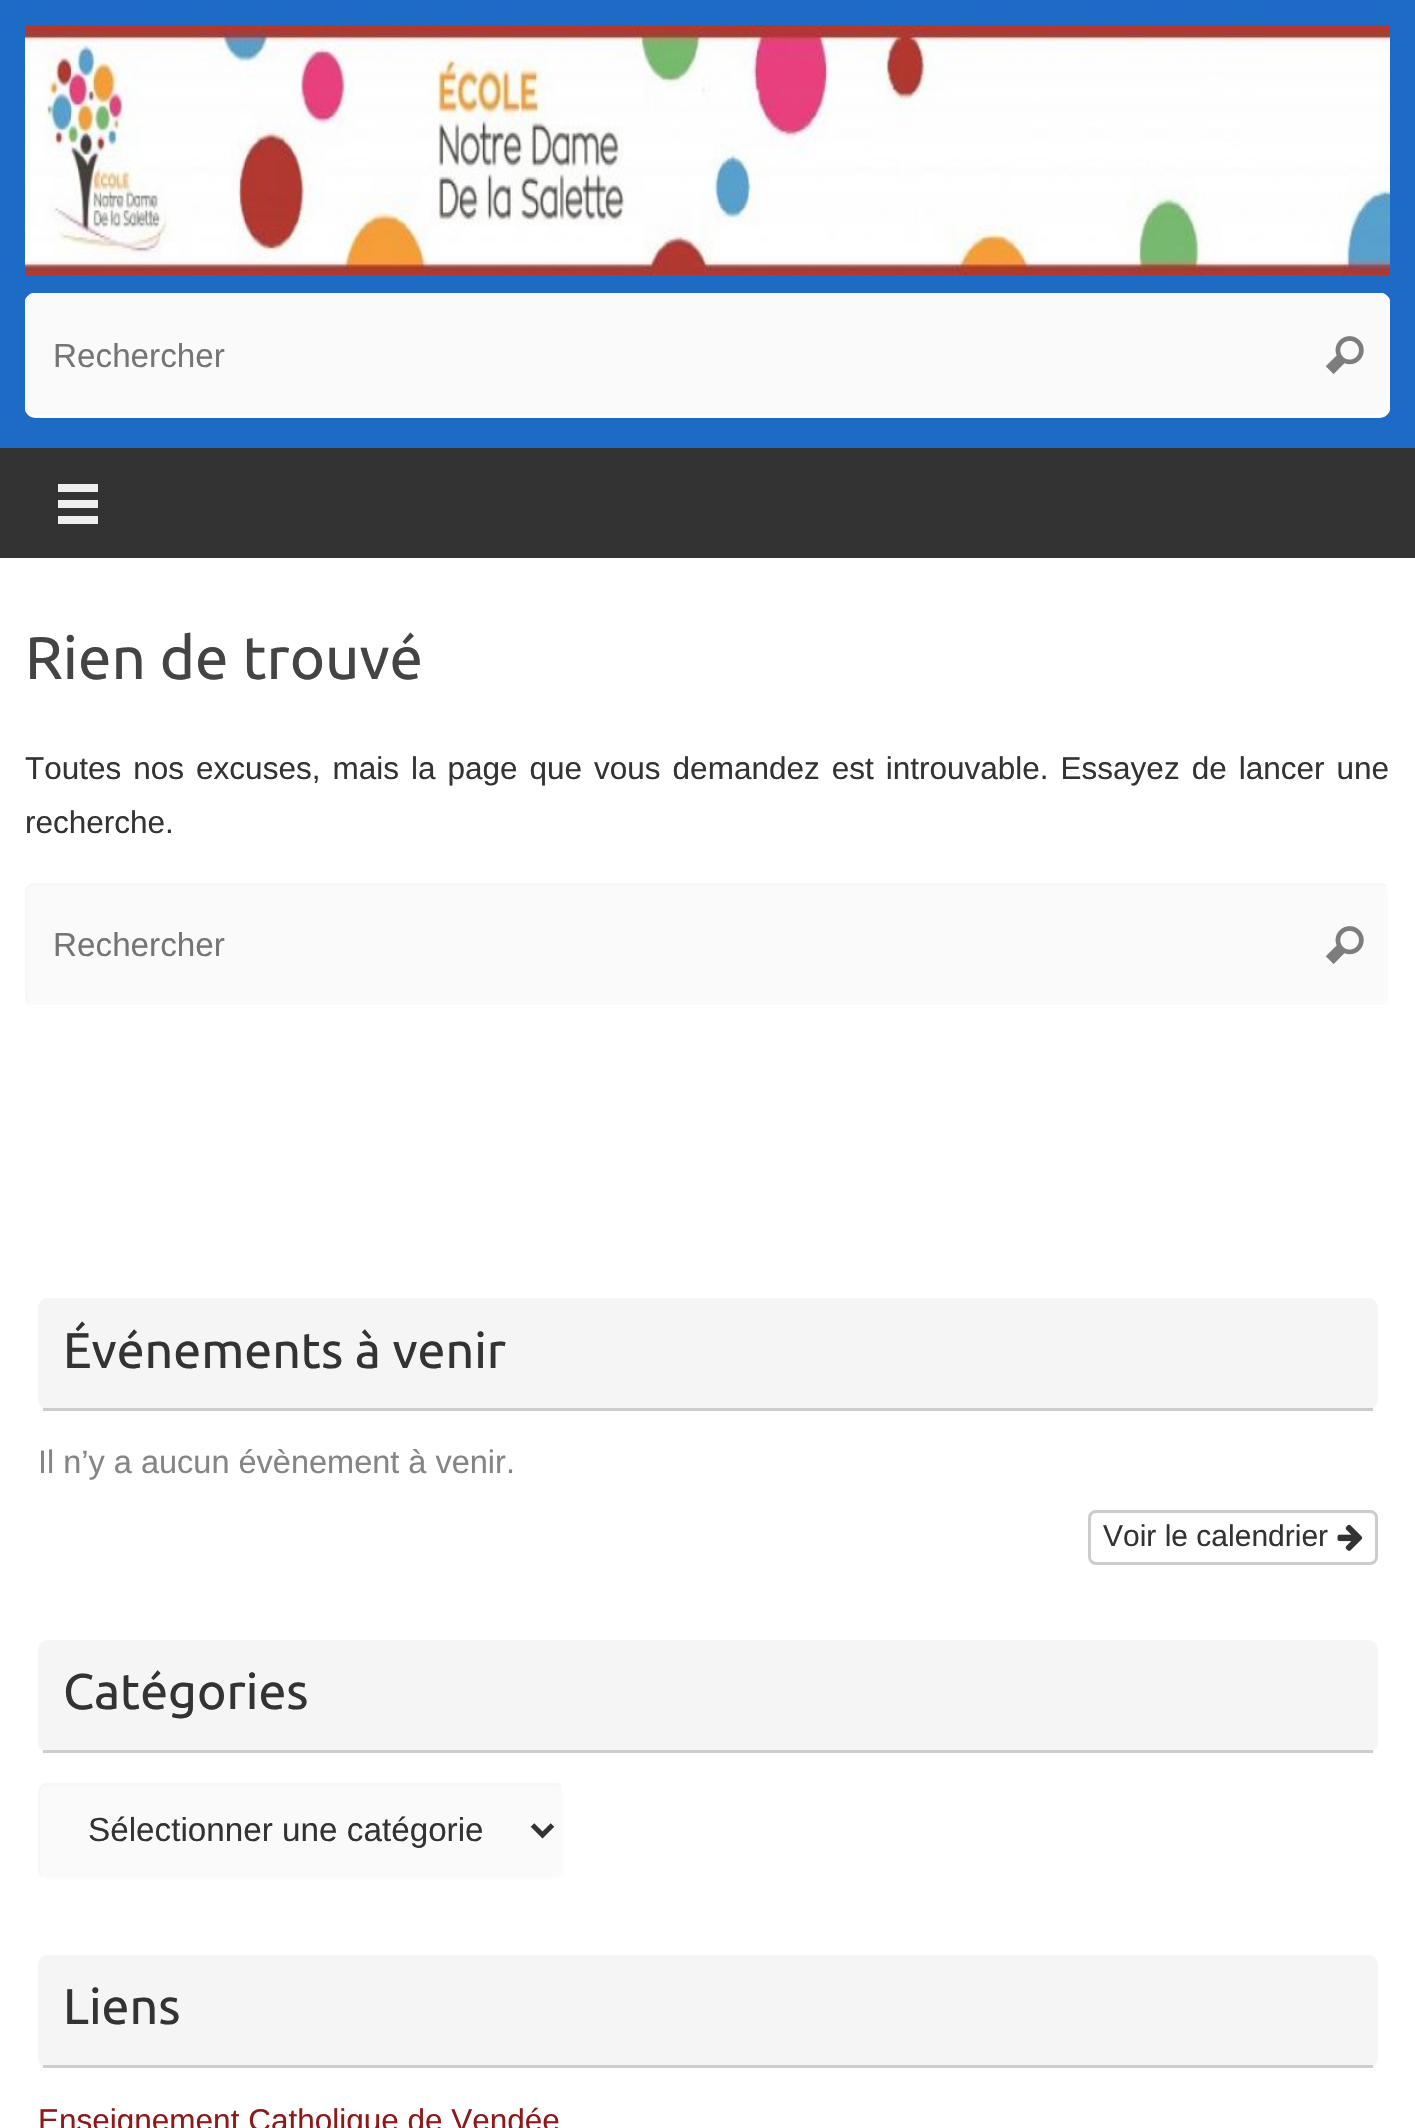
#include "include/core/SkBlurTypes.h"
#include "include/core/SkCanvas.h"
#include "include/core/SkData.h"
#include "include/core/SkFont.h"
#include "include/core/SkFontMgr.h"
#include "include/core/SkImage.h"
#include "include/core/SkMaskFilter.h"
#include "include/core/SkPaint.h"
#include "include/core/SkPathBuilder.h"
#include "include/core/SkTextBlob.h"
#include "include/effects/SkDashPathEffect.h"
#include "include/effects/SkGradientShader.h"
#include "include/utils/SkParsePath.h"

extern sk_sp<SkFontMgr> fontMgr;

void draw(SkCanvas* canvas) {
  SkPaint p;
  p.setAntiAlias(true);
  auto spacedText = [&](const char* s, float x, float y, const SkFont& font, const SkPaint& ink, float letter, float word) {
    std::vector<SkGlyphID> glyphs(font.countText(s, strlen(s), SkTextEncoding::kUTF8));
    std::vector<float> xs(glyphs.size());
    font.textToGlyphs(s, strlen(s), SkTextEncoding::kUTF8, glyphs);
    font.getXPos(glyphs, xs, x);
    float extra = 0;
    for (size_t i = 0; i < glyphs.size(); i++) {
      xs[i] += extra;
      extra += letter + word * (glyphs[i] == font.unicharToGlyph(' '));
    }
    canvas->drawTextBlob(SkTextBlob::MakeFromPosHGlyphs(glyphs, xs, y, font), 0, 0, ink);
  };
  canvas->clear(SkColorSetRGB(29, 107, 196));
  canvas->drawImageRect(SkImages::DeferredFromEncodedData(SkData::MakeFromFileName("images/1.png")), SkRect::MakeLTRB(25, 25, 1390, 275), SkSamplingOptions());
  p.setColor(SkColorSetRGB(250, 250, 250));
  canvas->drawRoundRect(SkRect::MakeLTRB(25, 293, 1390, 418), 10, 10, p);
  canvas->save();
  canvas->clipRect(SkRect::MakeLTRB(25, 293, 1390, 418));
  p.setStyle(SkPaint::kStroke_Style);
  p.setStrokeWidth(2.5f);
  p.setColor(SK_ColorWHITE);
  canvas->drawPath(SkPathBuilder().moveTo(1386, 296.5f).cubicTo(1388, 298, 1389, 300, 1389, 302.5f).lineTo(1389, 407.5f).cubicTo(1389, 410, 1388, 412, 1386, 413.5f).cubicTo(1384.5f, 415.5f, 1382.5f, 416, 1380, 416).lineTo(35, 416).cubicTo(32.5f, 416, 30.5f, 415.5f, 29, 413.5f).detach(), p);
  p.setColor(SkColorSetRGB(247, 247, 247));
  canvas->drawPath(SkPathBuilder().moveTo(29, 413.5f).cubicTo(27, 412, 26, 410, 26, 407.5f).lineTo(26, 302.5f).cubicTo(26, 300, 27, 298, 29, 296.5f).cubicTo(30.5f, 294.5f, 32.5f, 294, 35, 294).lineTo(1380, 294).cubicTo(1382.5f, 294, 1384.5f, 294.5f, 1386, 296.5f).detach(), p);
  canvas->restore();
  canvas->drawImageRect(SkImages::DeferredFromEncodedData(SkData::MakeFromFileName("images/2.png")), SkRect::MakeLTRB(1325, 336, 1364, 374), SkSamplingOptions());
  p.setStyle(SkPaint::kFill_Style);
  p.setColor(SkColorSetRGB(51, 51, 51));
  canvas->drawRect(SkRect::MakeLTRB(0, 448, 1415, 558), p);
  p.setColor(SkColorSetRGB(238, 238, 238));
  canvas->drawPath(SkPathBuilder().moveTo(58, 484).lineTo(58, 492).lineTo(98, 492).lineTo(98, 484).close().moveTo(58, 500).lineTo(58, 508).lineTo(98, 508).lineTo(98, 500).close().moveTo(58, 516).lineTo(58, 524).lineTo(98, 524).lineTo(98, 516).close().detach(), p);
  p.setColor(SK_ColorWHITE);
  canvas->drawRect(SkRect::MakeLTRB(0, 558, 1415, 2128), p);
  p.setColor(SkColorSetRGB(250, 250, 250));
  canvas->drawRoundRect(SkRect::MakeLTRB(25, 883, 1390, 1008), 10, 10, p);
  canvas->save();
  canvas->clipRect(SkRect::MakeLTRB(25, 883, 1390, 1008));
  p.setStyle(SkPaint::kStroke_Style);
  p.setColor(SK_ColorWHITE);
  canvas->drawPath(SkPathBuilder().moveTo(1386, 886.5f).cubicTo(1388, 888, 1389, 890, 1389, 892.5f).lineTo(1389, 997.5f).cubicTo(1389, 1000, 1388, 1002, 1386, 1003.5f).cubicTo(1384.5f, 1005.5f, 1382.5f, 1006, 1380, 1006).lineTo(35, 1006).cubicTo(32.5f, 1006, 30.5f, 1005.5f, 29, 1003.5f).detach(), p);
  p.setColor(SkColorSetRGB(247, 247, 247));
  canvas->drawPath(SkPathBuilder().moveTo(29, 1003.5f).cubicTo(27, 1002, 26, 1000, 26, 997.5f).lineTo(26, 892.5f).cubicTo(26, 890, 27, 888, 29, 886.5f).cubicTo(30.5f, 884.5f, 32.5f, 884, 35, 884).lineTo(1380, 884).cubicTo(1382.5f, 884, 1384.5f, 884.5f, 1386, 886.5f).detach(), p);
  canvas->restore();
  canvas->drawImageRect(SkImages::DeferredFromEncodedData(SkData::MakeFromFileName("images/2.png")), SkRect::MakeLTRB(1325, 926, 1364, 964), SkSamplingOptions());
  p.setStyle(SkPaint::kFill_Style);
  p.setColor(SkColorSetRGB(245, 245, 245));
  canvas->drawRoundRect(SkRect::MakeLTRB(38, 1298, 1378, 1410), 10, 10, p);
  p.setColor(SkColorSetRGB(205, 205, 205));
  canvas->drawRect(SkRect::MakeLTRB(43, 1408, 1373, 1411), p);
  p.setStyle(SkPaint::kStroke_Style);
  p.setStrokeWidth(3);
  p.setColor(SkColorSetRGB(204, 204, 204));
  canvas->drawRoundRect(SkRect::MakeLTRB(1089.5f, 1511.5f, 1376.5f, 1563.5f), 6.5f, 6.5f, p);
  canvas->drawImageRect(SkImages::DeferredFromEncodedData(SkData::MakeFromFileName("images/3.png")), SkRect::MakeLTRB(1337, 1524, 1363, 1551), SkSamplingOptions());
  p.setStyle(SkPaint::kFill_Style);
  p.setColor(SkColorSetRGB(245, 245, 245));
  canvas->drawRoundRect(SkRect::MakeLTRB(38, 1640, 1378, 1753), 10, 10, p);
  p.setColor(SkColorSetRGB(205, 205, 205));
  canvas->drawRect(SkRect::MakeLTRB(43, 1750, 1373, 1753), p);
  p.setColor(SkColorSetRGB(250, 250, 250));
  canvas->drawRoundRect(SkRect::MakeLTRB(38, 1783, 565, 1880), 10, 10, p);
  p.setStyle(SkPaint::kStroke_Style);
  p.setStrokeWidth(2.5f);
  p.setColor(SK_ColorWHITE);
  canvas->drawPath(SkPathBuilder().moveTo(561, 1786.5f).cubicTo(563, 1788, 564, 1790, 564, 1792.5f).lineTo(564, 1870).cubicTo(564, 1872.5f, 563, 1874.5f, 561, 1876).cubicTo(559.5f, 1878, 557.5f, 1879, 555, 1879).lineTo(47.5f, 1879).cubicTo(45, 1879, 43, 1878, 41.5f, 1876).detach(), p);
  p.setColor(SkColorSetRGB(247, 247, 247));
  canvas->drawPath(SkPathBuilder().moveTo(41.5f, 1876).cubicTo(39.5f, 1874.5f, 39, 1872.5f, 39, 1870).lineTo(39, 1792.5f).cubicTo(39, 1790, 39.5f, 1788, 41.5f, 1786.5f).cubicTo(43, 1784.5f, 45, 1784, 47.5f, 1784).lineTo(555, 1784).cubicTo(557.5f, 1784, 559.5f, 1784.5f, 561, 1786.5f).detach(), p);
  p.setStrokeWidth(5);
  p.setColor(SkColorSetRGB(51, 51, 51));
  canvas->drawPath(SkPathBuilder().moveTo(532.5f, 1825).lineTo(542.5f, 1835).lineTo(552.5f, 1825).detach(), p);
  p.setStyle(SkPaint::kFill_Style);
  p.setColor(SkColorSetRGB(245, 245, 245));
  canvas->drawRoundRect(SkRect::MakeLTRB(38, 1955, 1378, 2068), 10, 10, p);
  p.setColor(SkColorSetRGB(205, 205, 205));
  canvas->drawRect(SkRect::MakeLTRB(43, 2065, 1373, 2068), p);
  SkFont font1(fontMgr->matchFamilyStyle("Liberation Sans", SkFontStyle::Normal()), 33.25f);
  font1.setSubpixel(true);
  p.setColor(SkColorSetRGB(117, 117, 117));
  canvas->drawString("Rechercher", 53, 367, font1, p);
  SkFont font2(fontMgr->matchFamilyStyle("Ubuntu", SkFontStyle::Normal()), 60);
  font2.setSubpixel(true);
  p.setColor(SkColorSetRGB(68, 68, 68));
  canvas->drawString("Rien de trouvé", 25, 679, font2, p);
  SkFont font3(fontMgr->matchFamilyStyle("Liberation Sans", SkFontStyle::Normal()), 31.5f);
  font3.setSubpixel(true);
  p.setColor(SkColorSetRGB(51, 51, 51));
  spacedText("Toutes nos excuses, mais la page que vous demandez est introuvable. Essayez de lancer une", 25, 779, font3, p, 0, 3.25f);
  canvas->drawString("recherche.", 25, 833, font3, p);
  p.setColor(SkColorSetRGB(117, 117, 117));
  canvas->drawString("Rechercher", 53, 956, font1, p);
  SkFont font4(fontMgr->matchFamilyStyle("Ubuntu", SkFontStyle::Normal()), 50);
  font4.setSubpixel(true);
  p.setColor(SkColorSetRGB(51, 51, 51));
  canvas->drawString("Événements à venir", 63, 1368, font4, p);
  SkFont font5(fontMgr->matchFamilyStyle("Liberation Sans", SkFontStyle::Normal()), 32.5f);
  font5.setSubpixel(true);
  p.setColor(SkColorSetRGB(133, 133, 133));
  canvas->drawString("Il n’y a aucun évènement à venir.", 38, 1473, font5, p);
  SkFont font6(fontMgr->matchFamilyStyle("Liberation Sans", SkFontStyle::Normal()), 30);
  font6.setSubpixel(true);
  p.setColor(SkColorSetRGB(51, 51, 51));
  canvas->drawString("Voir le calendrier", 1103, 1546, font6, p);
  canvas->drawString("Catégories", 63, 1709, font4, p);
  canvas->drawString("Sélectionner une catégorie", 88, 1841, font1, p);
  canvas->drawString("Liens", 63, 2024, font4, p);
  p.setColor(SkColorSetRGB(142, 25, 27));
  canvas->drawString("Enseignement Catholique de Vendée", 38, 2131, font3, p);
}
